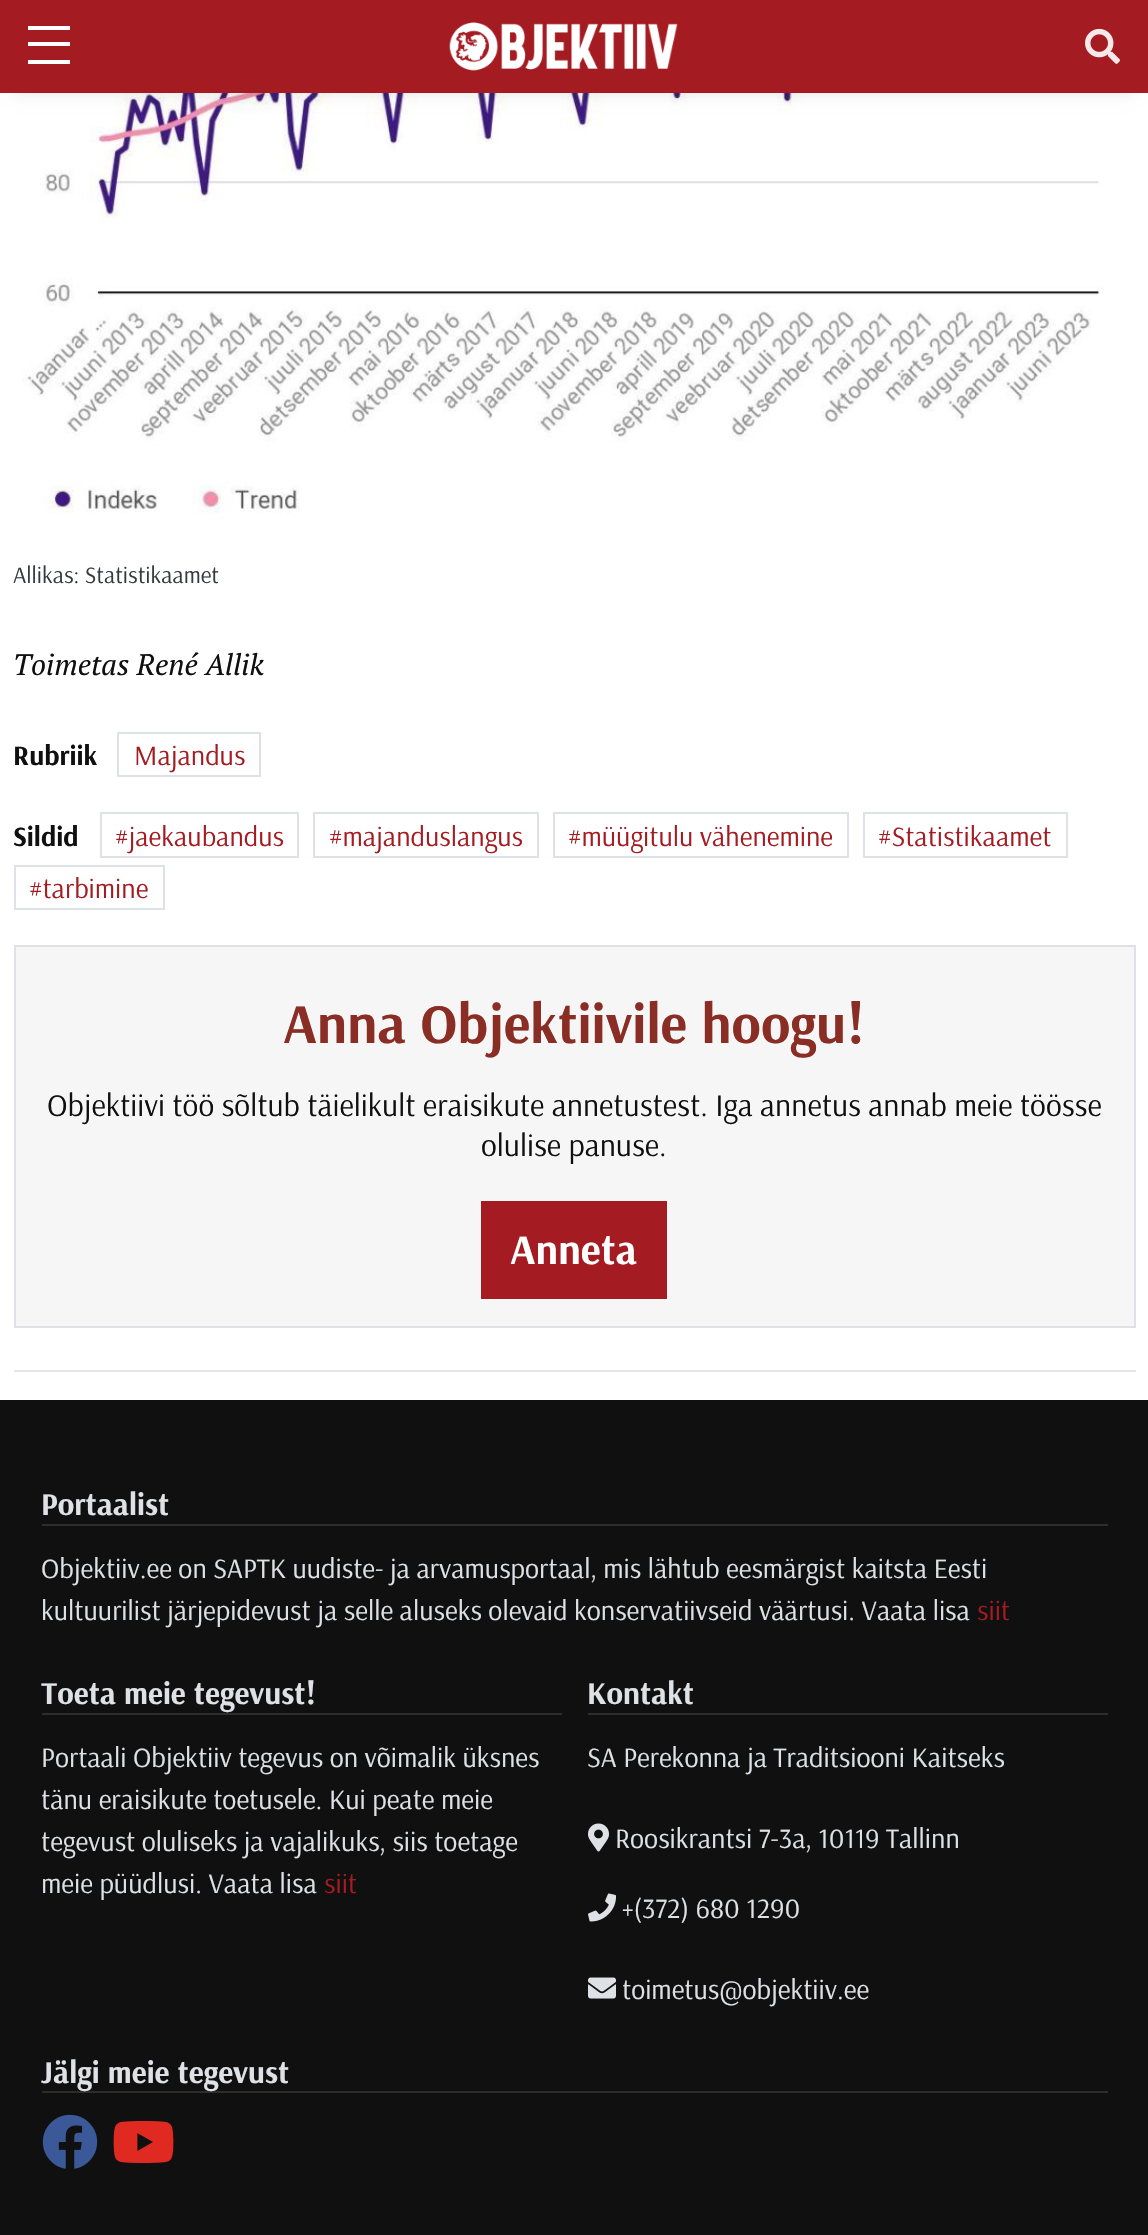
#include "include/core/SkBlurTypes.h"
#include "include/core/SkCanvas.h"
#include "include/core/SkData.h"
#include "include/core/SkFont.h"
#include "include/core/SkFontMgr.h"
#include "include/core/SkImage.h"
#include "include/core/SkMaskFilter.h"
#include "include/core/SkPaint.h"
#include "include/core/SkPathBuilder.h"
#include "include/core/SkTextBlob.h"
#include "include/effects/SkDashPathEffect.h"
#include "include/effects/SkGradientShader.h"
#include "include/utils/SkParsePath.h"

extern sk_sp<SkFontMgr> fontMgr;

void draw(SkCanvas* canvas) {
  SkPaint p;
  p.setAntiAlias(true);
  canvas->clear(SK_ColorWHITE);
  canvas->drawImageRect(SkImages::DeferredFromEncodedData(SkData::MakeFromFileName("images/3.png")), SkRect::MakeLTRB(22, 93, 1104, 514), SkSamplingOptions());
  p.setColor(SkColorSetARGB(26, 0, 0, 0));
  p.setMaskFilter(SkMaskFilter::MakeBlur(kNormal_SkBlurStyle, 7));
  canvas->drawRect(SkRect::MakeLTRB(14, 28, 1134, 93), p);
  p.setMaskFilter(nullptr);
  p.setColor(SkColorSetRGB(164, 28, 34));
  canvas->drawRect(SkRect::MakeLTRB(0, 0, 1148, 93), p);
  p.setColor(SK_ColorWHITE);
  canvas->drawRect(SkRect::MakeLTRB(28, 26, 70, 30), p);
  canvas->drawRect(SkRect::MakeLTRB(28, 42, 70, 46), p);
  canvas->drawRect(SkRect::MakeLTRB(28, 60, 70, 64), p);
  canvas->drawImageRect(SkImages::DeferredFromEncodedData(SkData::MakeFromFileName("images/1.png")), SkRect::MakeLTRB(449, 22, 678, 71), SkSamplingOptions());
  canvas->drawImageRect(SkImages::DeferredFromEncodedData(SkData::MakeFromFileName("images/2.png")), SkRect::MakeLTRB(1085, 28, 1120, 64), SkSamplingOptions());
  p.setStyle(SkPaint::kStroke_Style);
  p.setStrokeWidth(2);
  p.setColor(SkColorSetRGB(222, 226, 230));
  canvas->drawRect(SkRect::MakeLTRB(118, 733, 260, 776), p);
  canvas->drawRect(SkRect::MakeLTRB(101, 813, 298, 857), p);
  canvas->drawRect(SkRect::MakeLTRB(314, 813, 538, 857), p);
  canvas->drawRect(SkRect::MakeLTRB(554, 813, 848, 857), p);
  canvas->drawRect(SkRect::MakeLTRB(864, 813, 1067, 857), p);
  canvas->drawRect(SkRect::MakeLTRB(15, 866, 164, 909), p);
  p.setStyle(SkPaint::kFill_Style);
  p.setColor(SkColorSetRGB(246, 246, 246));
  canvas->drawRect(SkRect::MakeLTRB(15, 946, 1135, 1327), p);
  p.setStyle(SkPaint::kStroke_Style);
  p.setColor(SkColorSetRGB(222, 226, 230));
  canvas->drawRect(SkRect::MakeLTRB(15, 946, 1135, 1327), p);
  p.setStyle(SkPaint::kFill_Style);
  p.setColor(SkColorSetRGB(164, 28, 34));
  canvas->drawRect(SkRect::MakeLTRB(481, 1201, 667, 1299), p);
  p.setColor(SkColorSetRGB(230, 230, 230));
  canvas->drawRect(SkRect::MakeLTRB(14, 1370, 1136, 1372), p);
  p.setColor(SkColorSetRGB(16, 16, 16));
  canvas->drawRect(SkRect::MakeLTRB(0, 1400, 1148, 2235), p);
  p.setColor(SkColorSetRGB(45, 45, 45));
  canvas->drawRect(SkRect::MakeLTRB(42, 1524, 1108, 1526), p);
  canvas->drawRect(SkRect::MakeLTRB(42, 1713, 562, 1715), p);
  canvas->drawRect(SkRect::MakeLTRB(588, 1713, 1108, 1715), p);
  canvas->drawImageRect(SkImages::DeferredFromEncodedData(SkData::MakeFromFileName("images/4.png")), SkRect::MakeLTRB(588, 1823, 609, 1852), SkSamplingOptions());
  canvas->drawImageRect(SkImages::DeferredFromEncodedData(SkData::MakeFromFileName("images/5.png")), SkRect::MakeLTRB(588, 1893, 617, 1922), SkSamplingOptions());
  canvas->drawImageRect(SkImages::DeferredFromEncodedData(SkData::MakeFromFileName("images/6.png")), SkRect::MakeLTRB(588, 1977, 616, 1999), SkSamplingOptions());
  canvas->drawRect(SkRect::MakeLTRB(42, 2091, 1108, 2093), p);
  canvas->drawImageRect(SkImages::DeferredFromEncodedData(SkData::MakeFromFileName("images/7.png")), SkRect::MakeLTRB(42, 2114, 98, 2169), SkSamplingOptions());
  canvas->drawImageRect(SkImages::DeferredFromEncodedData(SkData::MakeFromFileName("images/8.png")), SkRect::MakeLTRB(113, 2121, 174, 2163), SkSamplingOptions());
  SkFont font1(fontMgr->matchFamilyStyle("Arsenal", SkFontStyle::Normal()), 23.5f);
  font1.setSubpixel(true);
  p.setColor(SkColorSetRGB(52, 58, 64));
  canvas->drawString("Allikas: Statistikaamet", 13, 583, font1, p);
  SkFont font2(fontMgr->matchFamilyStyle("PT Serif", SkFontStyle::Italic()), 29.5f);
  font2.setSubpixel(true);
  p.setColor(SkColorSetRGB(16, 16, 16));
  canvas->drawString("Toimetas René Allik", 13, 675, font2, p);
  SkFont font3(fontMgr->matchFamilyStyle("Arsenal", SkFontStyle::Bold()), 28);
  font3.setSubpixel(true);
  canvas->drawString("Rubriik", 13, 765, font3, p);
  SkFont font4(fontMgr->matchFamilyStyle("Arsenal", SkFontStyle::Normal()), 28);
  font4.setSubpixel(true);
  p.setColor(SkColorSetRGB(164, 28, 34));
  canvas->drawString("Majandus", 134, 765, font4, p);
  p.setColor(SkColorSetRGB(16, 16, 16));
  canvas->drawString("Sildid", 13, 846, font3, p);
  p.setColor(SkColorSetRGB(164, 28, 34));
  canvas->drawString("#jaekaubandus", 115, 846, font4, p);
  canvas->drawString("#majanduslangus", 329, 846, font4, p);
  canvas->drawString("#müügitulu vähenemine", 568, 846, font4, p);
  canvas->drawString("#Statistikaamet", 878, 846, font4, p);
  canvas->drawString("#tarbimine", 29, 898, font4, p);
  SkFont font5(fontMgr->matchFamilyStyle("Arsenal", SkFontStyle::Bold()), 56);
  font5.setSubpixel(true);
  p.setColor(SkColorSetRGB(138, 45, 36));
  canvas->drawString("Anna Objektiivile hoogu!", 283, 1043, font5, p);
  SkFont font6(fontMgr->matchFamilyStyle("Arsenal", SkFontStyle::Normal()), 31.5f);
  font6.setSubpixel(true);
  p.setColor(SkColorSetRGB(16, 16, 16));
  canvas->drawString("Objektiivi töö sõltub täielikult eraisikute annetustest. Iga annetus annab meie töösse", 47, 1116, font6, p);
  canvas->drawString("olulise panuse.", 481, 1156, font6, p);
  SkFont font7(fontMgr->matchFamilyStyle("Arsenal", SkFontStyle::Bold()), 42);
  font7.setSubpixel(true);
  p.setColor(SK_ColorWHITE);
  canvas->drawString("Anneta", 510, 1264, font7, p);
  SkFont font8(fontMgr->matchFamilyStyle("Arsenal", SkFontStyle::Bold()), 31.5f);
  font8.setSubpixel(true);
  p.setColor(SkColorSetRGB(222, 226, 230));
  canvas->drawString("Portaalist", 41, 1515, font8, p);
  canvas->drawString("Objektiiv.ee on SAPTK uudiste- ja arvamusportaal, mis lähtub eesmärgist kaitsta Eesti", 41, 1578, font4, p);
  canvas->drawString("kultuurilist järjepidevust ja selle aluseks olevaid konservatiivseid väärtusi. Vaata lisa", 41, 1620, font4, p);
  p.setColor(SkColorSetRGB(164, 28, 34));
  canvas->drawString("siit", 977, 1620, font4, p);
  p.setColor(SkColorSetRGB(222, 226, 230));
  canvas->drawString("Toeta meie tegevust!", 41, 1704, font8, p);
  canvas->drawString("Portaali Objektiiv tegevus on võimalik üksnes", 41, 1767, font4, p);
  canvas->drawString("tänu eraisikute toetusele. Kui peate meie", 41, 1809, font4, p);
  canvas->drawString("tegevust oluliseks ja vajalikuks, siis toetage", 41, 1851, font4, p);
  canvas->drawString("meie püüdlusi. Vaata lisa", 41, 1893, font4, p);
  p.setColor(SkColorSetRGB(164, 28, 34));
  canvas->drawString("siit", 324, 1893, font4, p);
  p.setColor(SkColorSetRGB(222, 226, 230));
  canvas->drawString("Kontakt", 587, 1704, font8, p);
  canvas->drawString("SA Perekonna ja Traditsiooni Kaitseks", 587, 1767, font4, p);
  canvas->drawString("Roosikrantsi 7-3a, 10119 Tallinn", 615, 1848, font4, p);
  canvas->drawString("+(372) 680 1290", 622, 1918, font4, p);
  canvas->drawString("toimetus@objektiiv.ee", 622, 1999, font4, p);
  canvas->drawString("Jälgi meie tegevust", 41, 2083, font8, p);
}
